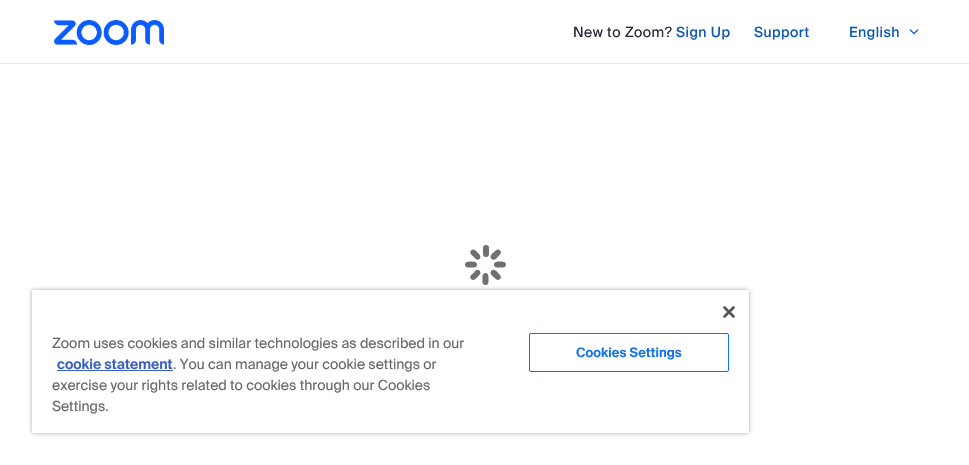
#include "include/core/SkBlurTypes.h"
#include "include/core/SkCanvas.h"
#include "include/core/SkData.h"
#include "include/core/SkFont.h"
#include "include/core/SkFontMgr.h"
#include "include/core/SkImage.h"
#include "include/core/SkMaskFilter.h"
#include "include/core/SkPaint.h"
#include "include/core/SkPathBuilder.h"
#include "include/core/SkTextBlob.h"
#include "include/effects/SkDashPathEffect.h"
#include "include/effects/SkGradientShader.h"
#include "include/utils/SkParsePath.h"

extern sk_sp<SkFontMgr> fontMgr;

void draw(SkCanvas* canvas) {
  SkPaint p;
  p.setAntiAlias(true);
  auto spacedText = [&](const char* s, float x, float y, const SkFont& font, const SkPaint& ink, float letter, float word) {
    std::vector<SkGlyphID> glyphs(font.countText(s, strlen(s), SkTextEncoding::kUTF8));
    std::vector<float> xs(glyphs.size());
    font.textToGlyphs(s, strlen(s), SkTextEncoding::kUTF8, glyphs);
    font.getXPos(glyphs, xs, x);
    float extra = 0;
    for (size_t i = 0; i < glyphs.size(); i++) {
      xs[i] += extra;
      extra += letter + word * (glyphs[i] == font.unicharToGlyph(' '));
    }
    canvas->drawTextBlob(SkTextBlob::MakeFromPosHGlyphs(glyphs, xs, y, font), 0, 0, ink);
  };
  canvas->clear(SK_ColorWHITE);
  p.setColor(SkColorSetRGB(235, 235, 235));
  canvas->drawRect(SkRect::MakeLTRB(0, 63, 969, 64), p);
  canvas->drawImageRect(SkImages::DeferredFromEncodedData(SkData::MakeFromFileName("images/1.png")), SkRect::MakeLTRB(54, 20, 164, 45), SkSamplingOptions());
  canvas->drawImageRect(SkImages::DeferredFromEncodedData(SkData::MakeFromFileName("images/2.png")), SkRect::MakeLTRB(909, 29, 919, 35), SkSamplingOptions());
  p.setColor(SkColorSetRGB(112, 112, 112));
  canvas->drawPath(SkPathBuilder().moveTo(471, 279).cubicTo(469, 277, 471.5f, 274.5f, 473.5f, 273).cubicTo(475, 271, 477.5f, 268.5f, 479.5f, 270.5f).cubicTo(482, 273, 479, 275.5f, 477.5f, 277).cubicTo(476, 278.5f, 473.5f, 281.5f, 471, 279).close().moveTo(465, 264.5f).cubicTo(465, 261.5f, 469, 261.5f, 471, 261.5f).cubicTo(473.5f, 261.5f, 477, 261.5f, 477, 264.5f).cubicTo(477, 268, 473.5f, 267.5f, 471, 267.5f).cubicTo(469, 267.5f, 465, 268, 465, 264.5f).close().moveTo(471, 250.5f).cubicTo(473.5f, 248, 476, 251, 477.5f, 252.5f).cubicTo(479, 254, 482, 256.5f, 479.5f, 259).cubicTo(477.5f, 261, 475, 258.5f, 473.5f, 256.5f).cubicTo(471.5f, 255, 469, 252.5f, 471, 250.5f).close().detach(), p);
  canvas->drawRoundRect(SkRect::MakeLTRB(483, 245, 489, 257), 3, 3, p);
  canvas->drawPath(SkPathBuilder().moveTo(500, 250.5f).cubicTo(502.5f, 252.5f, 499.5f, 255, 498, 256.5f).cubicTo(496.5f, 258.5f, 494, 261, 491.5f, 259).cubicTo(489, 256.5f, 492, 254, 493.5f, 252.5f).cubicTo(495.5f, 251, 497.5f, 248, 500, 250.5f).close().moveTo(506, 264.5f).cubicTo(506, 268, 502.5f, 267.5f, 500, 267.5f).cubicTo(497.5f, 267.5f, 494, 268, 494, 264.5f).cubicTo(494, 261.5f, 497.5f, 261.5f, 500, 261.5f).cubicTo(502.5f, 261.5f, 506, 261.5f, 506, 264.5f).close().moveTo(500, 279).cubicTo(497.5f, 281.5f, 495.5f, 278.5f, 493.5f, 277).cubicTo(492, 275.5f, 489, 273, 491.5f, 270.5f).cubicTo(494, 268.5f, 496.5f, 271, 498, 273).cubicTo(499.5f, 274.5f, 502.5f, 277, 500, 279).close().moveTo(485.5f, 285).cubicTo(482, 285, 482.5f, 281.5f, 482.5f, 279).cubicTo(482.5f, 277, 482, 273, 485.5f, 273).cubicTo(489, 273, 488.5f, 277, 488.5f, 279).cubicTo(488.5f, 281.5f, 489, 285, 485.5f, 285).close().detach(), p);
  canvas->save();
  canvas->clipPath(SkPathBuilder(SkPathFillType::kEvenOdd).moveTo(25, 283).lineTo(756, 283).lineTo(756, 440).lineTo(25, 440).close().moveTo(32, 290).lineTo(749, 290).lineTo(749, 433).lineTo(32, 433).close().detach(), true);
  p.setColor(SkColorSetARGB(89, 0, 0, 0));
  p.setMaskFilter(SkMaskFilter::MakeBlur(kNormal_SkBlurStyle, 2));
  canvas->drawRect(SkRect::MakeLTRB(32, 290, 749, 433), p);
  p.setMaskFilter(nullptr);
  canvas->restore();
  canvas->drawImageRect(SkImages::DeferredFromEncodedData(SkData::MakeFromFileName("images/3.png")), SkRect::MakeLTRB(723, 306, 735, 318), SkSamplingOptions());
  p.setColor(SkColorSetRGB(56, 96, 190));
  canvas->drawRect(SkRect::MakeLTRB(57, 370, 173, 371), p);
  p.setStyle(SkPaint::kStroke_Style);
  p.setStrokeWidth(1);
  p.setColor(SkColorSetRGB(14, 113, 235));
  canvas->drawRoundRect(SkRect::MakeLTRB(529.5f, 333.5f, 728.5f, 371.5f), 1.5f, 1.5f, p);
  SkFont font1(fontMgr->matchFamilyStyle("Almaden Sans", SkFontStyle::Normal()), 14);
  font1.setSubpixel(true);
  p.setStyle(SkPaint::kFill_Style);
  p.setColor(SkColorSetRGB(35, 35, 51));
  spacedText("New to Zoom?", 573, 37, font1, p, 0.5f, 0);
  SkFont font2(fontMgr->matchFamilyStyle("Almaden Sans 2", SkFontStyle::Normal()), 14);
  font2.setSubpixel(true);
  p.setColor(SkColorSetRGB(9, 86, 181));
  spacedText("Sign Up", 676, 37, font2, p, 0.5f, 0);
  spacedText("Support", 754, 37, font2, p, 0.5f, 0);
  spacedText("English", 849, 37, font2, p, 0.5f, 0);
  p.setColor(SkColorSetRGB(105, 105, 105));
  canvas->drawString("Zoom uses cookies and similar technologies as described in our", 52, 348, font1, p);
  SkFont font3(fontMgr->matchFamilyStyle("Almaden Sans", SkFontStyle(600, SkFontStyle::kNormal_Width, SkFontStyle::kUpright_Slant)), 14);
  font3.setSubpixel(true);
  p.setColor(SkColorSetRGB(56, 96, 190));
  canvas->drawString("cookie statement", 57, 369, font3, p);
  p.setColor(SkColorSetRGB(105, 105, 105));
  canvas->drawString(". You can manage your cookie settings or", 173, 369, font1, p);
  canvas->drawString("exercise your rights related to cookies through our Cookies", 52, 390, font1, p);
  canvas->drawString("Settings.", 52, 411, font1, p);
  SkFont font4(fontMgr->matchFamilyStyle("Almaden Sans", SkFontStyle(600, SkFontStyle::kNormal_Width, SkFontStyle::kUpright_Slant)), 13);
  font4.setSubpixel(true);
  p.setColor(SkColorSetRGB(14, 113, 235));
  spacedText("Cookies Settings", 576, 357, font4, p, 0.1f, 0);
}
